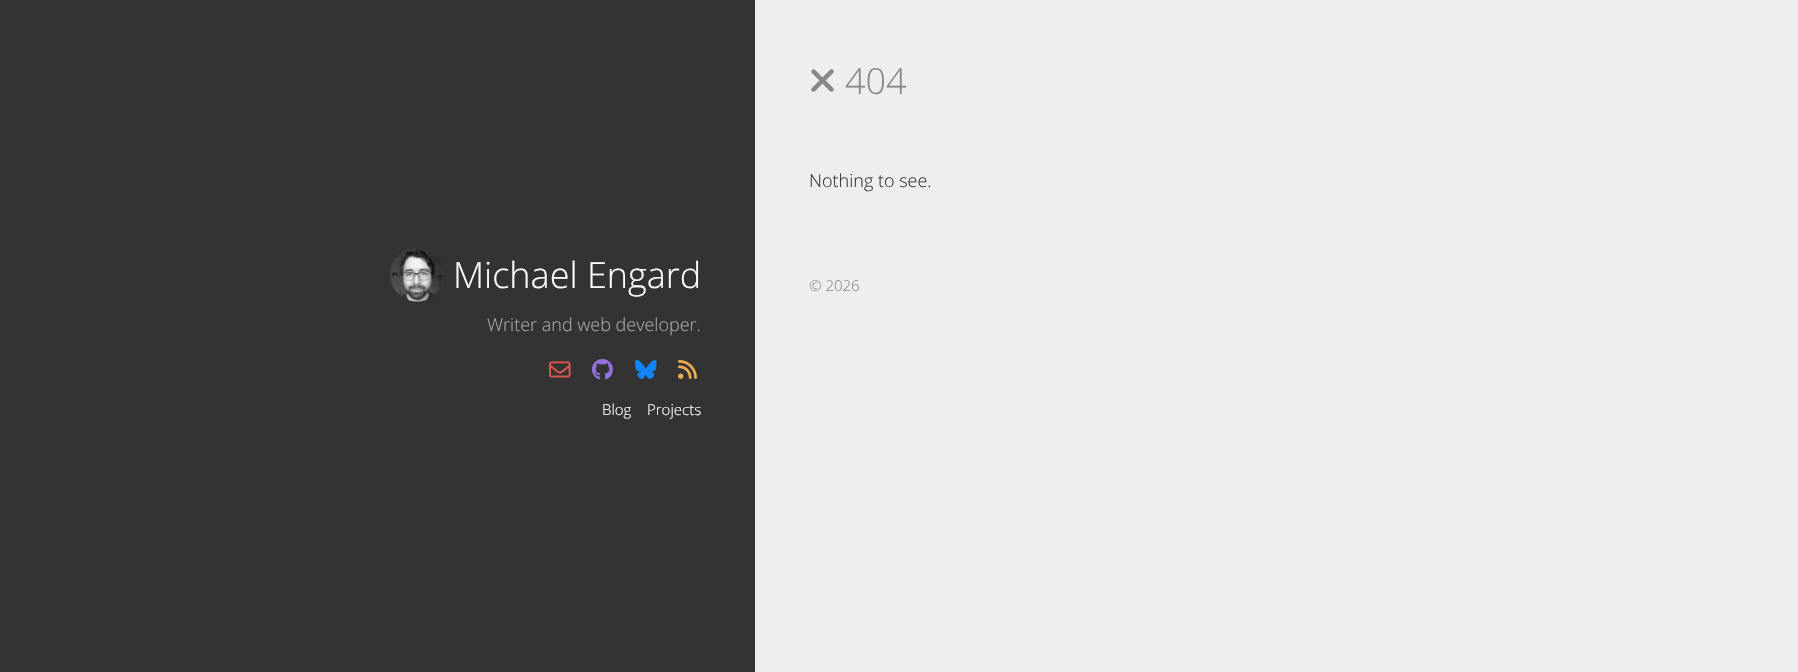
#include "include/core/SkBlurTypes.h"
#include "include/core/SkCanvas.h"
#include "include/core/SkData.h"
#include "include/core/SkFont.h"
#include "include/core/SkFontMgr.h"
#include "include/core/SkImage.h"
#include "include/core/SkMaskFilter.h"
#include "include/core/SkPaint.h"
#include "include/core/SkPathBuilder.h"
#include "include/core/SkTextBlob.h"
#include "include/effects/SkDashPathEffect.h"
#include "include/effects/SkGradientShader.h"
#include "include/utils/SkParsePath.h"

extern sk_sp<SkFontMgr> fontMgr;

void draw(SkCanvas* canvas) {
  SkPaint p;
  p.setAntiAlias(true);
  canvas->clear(SkColorSetRGB(51, 51, 51));
  p.setColor(SkColorSetRGB(238, 238, 238));
  canvas->drawRect(SkRect::MakeLTRB(755, 0, 1798, 672), p);
  canvas->drawImageRect(SkImages::DeferredFromEncodedData(SkData::MakeFromFileName("images/1.png")), SkRect::MakeLTRB(811, 69, 834, 92), SkSamplingOptions());
  canvas->drawImageRect(SkImages::DeferredFromEncodedData(SkData::MakeFromFileName("images/2.png")), SkRect::MakeLTRB(390, 248, 444, 302), SkSamplingOptions());
  canvas->drawImageRect(SkImages::DeferredFromEncodedData(SkData::MakeFromFileName("images/3.png")), SkRect::MakeLTRB(549, 361, 571, 378), SkSamplingOptions());
  canvas->drawImageRect(SkImages::DeferredFromEncodedData(SkData::MakeFromFileName("images/4.png")), SkRect::MakeLTRB(592, 359, 613, 380), SkSamplingOptions());
  canvas->drawImageRect(SkImages::DeferredFromEncodedData(SkData::MakeFromFileName("images/5.png")), SkRect::MakeLTRB(635, 360, 657, 379), SkSamplingOptions());
  canvas->drawImageRect(SkImages::DeferredFromEncodedData(SkData::MakeFromFileName("images/6.png")), SkRect::MakeLTRB(678, 360, 697, 379), SkSamplingOptions());
  SkFont font1(fontMgr->matchFamilyStyle("Open Sans", SkFontStyle(300, SkFontStyle::kNormal_Width, SkFontStyle::kUpright_Slant)), 36);
  font1.setSubpixel(true);
  p.setColor(SkColorSetRGB(136, 136, 136));
  canvas->drawString("404", 845, 94, font1, p);
  SkFont font2(fontMgr->matchFamilyStyle("Open Sans", SkFontStyle(300, SkFontStyle::kNormal_Width, SkFontStyle::kUpright_Slant)), 18);
  font2.setSubpixel(true);
  p.setColor(SkColorSetRGB(51, 51, 51));
  canvas->drawString("Nothing to see.", 809, 187, font2, p);
  SkFont font3(fontMgr->matchFamilyStyle("Open Sans", SkFontStyle(300, SkFontStyle::kNormal_Width, SkFontStyle::kUpright_Slant)), 15);
  font3.setSubpixel(true);
  p.setColor(SkColorSetRGB(136, 136, 136));
  canvas->drawString("© 2026", 809, 291, font3, p);
  p.setColor(SK_ColorWHITE);
  canvas->drawString("Michael Engard", 453, 288, font1, p);
  p.setColor(SkColorSetRGB(170, 170, 170));
  canvas->drawString("Writer and web developer.", 487, 331, font2, p);
  p.setColor(SK_ColorWHITE);
  canvas->drawString("Blog", 602, 415, font3, p);
  canvas->drawString("Projects", 647, 415, font3, p);
}
